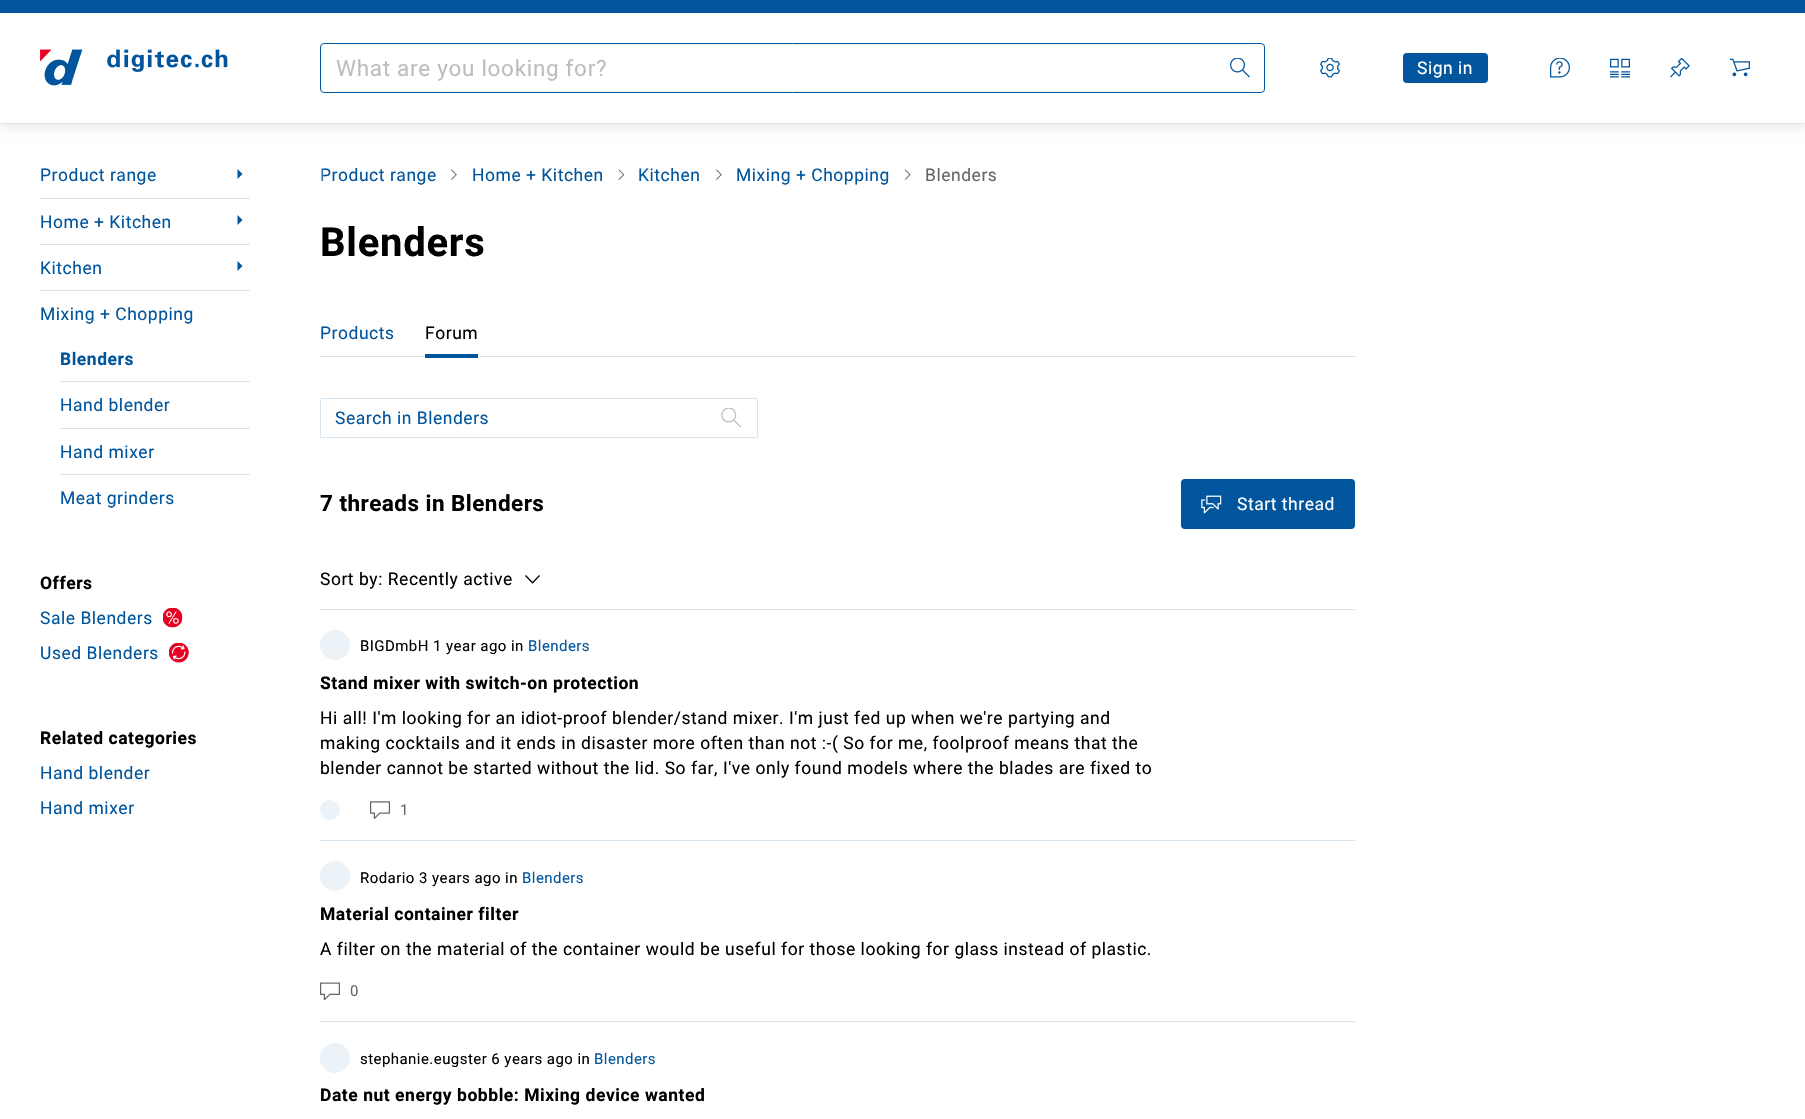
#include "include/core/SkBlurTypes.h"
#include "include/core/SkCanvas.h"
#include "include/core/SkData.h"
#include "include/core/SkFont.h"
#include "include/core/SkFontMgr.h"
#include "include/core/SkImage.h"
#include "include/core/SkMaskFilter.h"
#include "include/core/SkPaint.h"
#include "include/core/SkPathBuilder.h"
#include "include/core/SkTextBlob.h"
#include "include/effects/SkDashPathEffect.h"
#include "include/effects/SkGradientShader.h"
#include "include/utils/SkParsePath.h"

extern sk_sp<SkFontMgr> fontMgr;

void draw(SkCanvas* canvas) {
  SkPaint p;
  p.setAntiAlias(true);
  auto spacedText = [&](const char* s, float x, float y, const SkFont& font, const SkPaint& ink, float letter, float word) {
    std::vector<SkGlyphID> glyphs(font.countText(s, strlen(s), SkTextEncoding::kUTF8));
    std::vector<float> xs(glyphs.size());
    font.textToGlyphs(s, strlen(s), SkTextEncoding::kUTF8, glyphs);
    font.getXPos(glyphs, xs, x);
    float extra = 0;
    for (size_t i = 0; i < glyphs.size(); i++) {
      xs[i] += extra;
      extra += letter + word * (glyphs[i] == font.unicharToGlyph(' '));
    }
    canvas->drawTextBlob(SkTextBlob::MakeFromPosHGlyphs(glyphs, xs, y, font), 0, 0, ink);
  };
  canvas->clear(SK_ColorWHITE);
  p.setColor(SkColorSetARGB(20, 0, 0, 0));
  p.setMaskFilter(SkMaskFilter::MakeBlur(kNormal_SkBlurStyle, 5));
  canvas->drawRect(SkRect::MakeLTRB(0, 5, 1805, 128), p);
  p.setMaskFilter(nullptr);
  p.setColor(SkColorSetARGB(41, 0, 0, 0));
  p.setMaskFilter(SkMaskFilter::MakeBlur(kNormal_SkBlurStyle, 1));
  canvas->drawRect(SkRect::MakeLTRB(0, 0, 1805, 123), p);
  p.setMaskFilter(nullptr);
  p.setColor(SK_ColorWHITE);
  canvas->drawRect(SkRect::MakeLTRB(0, 13, 1805, 123), p);
  p.setColor(SkColorSetRGB(0, 85, 157));
  canvas->drawRect(SkRect::MakeLTRB(0, 0, 1805, 13), p);
  canvas->drawImageRect(SkImages::DeferredFromEncodedData(SkData::MakeFromFileName("images/1.png")), SkRect::MakeLTRB(40, 49, 228, 86), SkSamplingOptions());
  p.setStyle(SkPaint::kStroke_Style);
  p.setStrokeWidth(1);
  canvas->drawRoundRect(SkRect::MakeLTRB(320.5f, 43.5f, 1264.5f, 92.5f), 3.5f, 3.5f, p);
  canvas->drawImageRect(SkImages::DeferredFromEncodedData(SkData::MakeFromFileName("images/2.png")), SkRect::MakeLTRB(1230, 58, 1250, 78), SkSamplingOptions());
  canvas->drawImageRect(SkImages::DeferredFromEncodedData(SkData::MakeFromFileName("images/3.png")), SkRect::MakeLTRB(1320, 58, 1340, 78), SkSamplingOptions());
  p.setStyle(SkPaint::kFill_Style);
  canvas->drawRoundRect(SkRect::MakeLTRB(1403, 53, 1488, 83), 4, 4, p);
  canvas->drawImageRect(SkImages::DeferredFromEncodedData(SkData::MakeFromFileName("images/4.png")), SkRect::MakeLTRB(1550, 58, 1570, 78), SkSamplingOptions());
  canvas->drawImageRect(SkImages::DeferredFromEncodedData(SkData::MakeFromFileName("images/5.png")), SkRect::MakeLTRB(1610, 58, 1630, 78), SkSamplingOptions());
  canvas->drawImageRect(SkImages::DeferredFromEncodedData(SkData::MakeFromFileName("images/6.png")), SkRect::MakeLTRB(1670, 58, 1690, 78), SkSamplingOptions());
  canvas->drawImageRect(SkImages::DeferredFromEncodedData(SkData::MakeFromFileName("images/7.png")), SkRect::MakeLTRB(1730, 58, 1750, 77), SkSamplingOptions());
  p.setColor(SkColorSetRGB(214, 228, 239));
  canvas->drawRect(SkRect::MakeLTRB(40, 198, 250, 199), p);
  p.setColor(SkColorSetRGB(0, 85, 157));
  canvas->drawPath(SkPathBuilder().moveTo(237.5f, 179).lineTo(237.5f, 169).lineTo(242.5f, 174).close().detach(), p);
  p.setColor(SkColorSetRGB(214, 228, 239));
  canvas->drawRect(SkRect::MakeLTRB(40, 244, 250, 245), p);
  p.setColor(SkColorSetRGB(0, 85, 157));
  canvas->drawPath(SkPathBuilder().moveTo(237.5f, 225).lineTo(237.5f, 215).lineTo(242.5f, 220).close().detach(), p);
  p.setColor(SkColorSetRGB(214, 228, 239));
  canvas->drawRect(SkRect::MakeLTRB(40, 290, 250, 291), p);
  p.setColor(SkColorSetRGB(0, 85, 157));
  canvas->drawPath(SkPathBuilder().moveTo(237.5f, 271).lineTo(237.5f, 261).lineTo(242.5f, 266).close().detach(), p);
  p.setColor(SkColorSetRGB(214, 228, 239));
  canvas->drawRect(SkRect::MakeLTRB(60, 381, 250, 382), p);
  canvas->drawRect(SkRect::MakeLTRB(60, 428, 250, 429), p);
  canvas->drawRect(SkRect::MakeLTRB(60, 474, 250, 475), p);
  canvas->drawImageRect(SkImages::DeferredFromEncodedData(SkData::MakeFromFileName("images/8.png")), SkRect::MakeLTRB(163, 608, 183, 628), SkSamplingOptions());
  canvas->drawImageRect(SkImages::DeferredFromEncodedData(SkData::MakeFromFileName("images/9.png")), SkRect::MakeLTRB(169, 643, 189, 663), SkSamplingOptions());
  canvas->drawImageRect(SkImages::DeferredFromEncodedData(SkData::MakeFromFileName("images/10.png")), SkRect::MakeLTRB(451, 169, 457, 180), SkSamplingOptions());
  canvas->drawImageRect(SkImages::DeferredFromEncodedData(SkData::MakeFromFileName("images/11.png")), SkRect::MakeLTRB(618, 169, 625, 180), SkSamplingOptions());
  canvas->drawImageRect(SkImages::DeferredFromEncodedData(SkData::MakeFromFileName("images/10.png")), SkRect::MakeLTRB(716, 169, 722, 180), SkSamplingOptions());
  canvas->drawImageRect(SkImages::DeferredFromEncodedData(SkData::MakeFromFileName("images/12.png")), SkRect::MakeLTRB(904, 169, 911, 180), SkSamplingOptions());
  canvas->drawRect(SkRect::MakeLTRB(320, 356, 1355, 357), p);
  p.setColor(SkColorSetRGB(0, 85, 157));
  canvas->drawRect(SkRect::MakeLTRB(425, 354, 478, 358), p);
  p.setStyle(SkPaint::kStroke_Style);
  p.setColor(SkColorSetRGB(214, 228, 239));
  canvas->drawRoundRect(SkRect::MakeLTRB(320.5f, 398.5f, 757.5f, 437.5f), 0.5f, 0.5f, p);
  canvas->drawImageRect(SkImages::DeferredFromEncodedData(SkData::MakeFromFileName("images/13.png")), SkRect::MakeLTRB(721, 408, 741, 428), SkSamplingOptions());
  p.setStyle(SkPaint::kFill_Style);
  p.setColor(SkColorSetRGB(0, 85, 157));
  canvas->drawRoundRect(SkRect::MakeLTRB(1181, 479, 1355, 529), 4, 4, p);
  canvas->drawImageRect(SkImages::DeferredFromEncodedData(SkData::MakeFromFileName("images/14.png")), SkRect::MakeLTRB(1201, 495, 1222, 514), SkSamplingOptions());
  canvas->drawImageRect(SkImages::DeferredFromEncodedData(SkData::MakeFromFileName("images/15.png")), SkRect::MakeLTRB(525, 575, 540, 584), SkSamplingOptions());
  p.setColor(SkColorSetRGB(214, 228, 239));
  canvas->drawRect(SkRect::MakeLTRB(320, 609, 1355, 610), p);
  canvas->drawRect(SkRect::MakeLTRB(320, 840, 1355, 841), p);
  p.setColor(SkColorSetRGB(235, 242, 248));
  canvas->drawCircle(335, 645, 15, p);
  canvas->drawCircle(330, 810, 10, p);
  canvas->drawImageRect(SkImages::DeferredFromEncodedData(SkData::MakeFromFileName("images/16.png")), SkRect::MakeLTRB(370, 801, 390, 819), SkSamplingOptions());
  p.setColor(SkColorSetRGB(214, 228, 239));
  canvas->drawRect(SkRect::MakeLTRB(320, 1021, 1355, 1022), p);
  p.setColor(SkColorSetRGB(235, 242, 248));
  canvas->drawCircle(335, 876, 15, p);
  canvas->drawImageRect(SkImages::DeferredFromEncodedData(SkData::MakeFromFileName("images/17.png")), SkRect::MakeLTRB(320, 982, 340, 1000), SkSamplingOptions());
  canvas->drawCircle(335, 1058, 15, p);
  SkFont font1(fontMgr->matchFamilyStyle("Roboto", SkFontStyle::Normal()), 22.5f);
  font1.setSubpixel(true);
  p.setColor(SkColorSetRGB(189, 189, 189));
  spacedText("What are you looking for?", 336, 76, font1, p, 0.7f, 0);
  SkFont font2(fontMgr->matchFamilyStyle("Roboto", SkFontStyle::Normal()), 17.5f);
  font2.setSubpixel(true);
  p.setColor(SK_ColorWHITE);
  spacedText("Sign in", 1417, 74, font2, p, 0.53f, 0);
  p.setColor(SkColorSetRGB(0, 85, 157));
  spacedText("Product range", 40, 181, font2, p, 0.53f, 0);
  spacedText("Home + Kitchen", 40, 228, font2, p, 0.53f, 0);
  spacedText("Kitchen", 40, 274, font2, p, 0.53f, 0);
  spacedText("Mixing + Chopping", 40, 320, font2, p, 0.53f, 0);
  SkFont font3(fontMgr->matchFamilyStyle("Roboto", SkFontStyle::Bold()), 17.5f);
  font3.setSubpixel(true);
  spacedText("Blenders", 60, 365, font3, p, 0.53f, 0);
  spacedText("Hand blender", 60, 411, font2, p, 0.53f, 0);
  spacedText("Hand mixer", 60, 458, font2, p, 0.53f, 0);
  spacedText("Meat grinders", 60, 504, font2, p, 0.53f, 0);
  p.setColor(SK_ColorBLACK);
  spacedText("Offers", 40, 589, font3, p, 0.53f, 0);
  p.setColor(SkColorSetRGB(0, 85, 157));
  spacedText("Sale Blenders", 40, 624, font2, p, 0.53f, 0);
  spacedText("Used Blenders", 40, 659, font2, p, 0.53f, 0);
  p.setColor(SK_ColorBLACK);
  spacedText("Related categories", 40, 744, font3, p, 0.53f, 0);
  p.setColor(SkColorSetRGB(0, 85, 157));
  spacedText("Hand blender", 40, 779, font2, p, 0.53f, 0);
  spacedText("Hand mixer", 40, 814, font2, p, 0.53f, 0);
  spacedText("Product range", 320, 181, font2, p, 0.53f, 0);
  spacedText("Home + Kitchen", 472, 181, font2, p, 0.53f, 0);
  spacedText("Kitchen", 638, 181, font2, p, 0.53f, 0);
  spacedText("Mixing + Chopping", 736, 181, font2, p, 0.53f, 0);
  p.setColor(SkColorSetRGB(102, 102, 102));
  spacedText("Blenders", 925, 181, font2, p, 0.53f, 0);
  {
    const SkColor colors[] = {SK_ColorWHITE, SkColorSetARGB(217, 255, 255, 255), SkColorSetARGB(0, 255, 255, 255)};
    const float stops[] = {0, 0.49f, 1};
    const SkPoint ends[] = {{305, 175}, {325, 175}};
    p.setShader(SkGradientShader::MakeLinear(ends, colors, stops, 3, SkTileMode::kClamp));
    p.setAlpha(255);
  }
  canvas->drawRect(SkRect::MakeLTRB(321, 168, 325, 181), p);
  SkFont font4(fontMgr->matchFamilyStyle("Roboto", SkFontStyle::Bold()), 40);
  font4.setSubpixel(true);
  p.setShader(nullptr);
  p.setColor(SK_ColorBLACK);
  spacedText("Blenders", 320, 256, font4, p, 0.75f, 0);
  p.setColor(SkColorSetRGB(0, 85, 157));
  spacedText("Products", 320, 339, font2, p, 0.53f, 0);
  p.setColor(SK_ColorBLACK);
  spacedText("Forum", 425, 339, font2, p, 0.53f, 0);
  p.setColor(SkColorSetRGB(0, 85, 157));
  spacedText("Search in Blenders", 335, 424, font2, p, 0.53f, 0);
  SkFont font5(fontMgr->matchFamilyStyle("Roboto", SkFontStyle::Bold()), 22.5f);
  font5.setSubpixel(true);
  p.setColor(SK_ColorBLACK);
  spacedText("7 threads in Blenders", 320, 511, font5, p, 0.45f, 0);
  p.setColor(SK_ColorWHITE);
  spacedText("Start thread", 1237, 510, font2, p, 0.53f, 0);
  p.setColor(SK_ColorBLACK);
  spacedText("Sort by: Recently active", 320, 585, font2, p, 0.53f, 0);
  SkFont font6(fontMgr->matchFamilyStyle("Roboto", SkFontStyle::Normal()), 15);
  font6.setSubpixel(true);
  spacedText("BIGDmbH 1 year ago in", 360, 651, font6, p, 0.45f, 0);
  p.setColor(SkColorSetRGB(0, 85, 157));
  spacedText("Blenders", 528, 651, font6, p, 0.45f, 0);
  p.setColor(SK_ColorBLACK);
  spacedText("Stand mixer with switch-on protection", 320, 689, font3, p, 0.53f, 0);
  spacedText("Hi all! I'm looking for an idiot-proof blender/stand mixer. I'm just fed up when we're partying and", 320, 724, font2, p, 0.53f, 0);
  spacedText("making cocktails and it ends in disaster more often than not :-( So for me, foolproof means that the", 320, 749, font2, p, 0.53f, 0);
  spacedText("blender cannot be started without the lid. So far, I've only found models where the blades are fixed to", 320, 774, font2, p, 0.53f, 0);
  p.setColor(SkColorSetRGB(102, 102, 102));
  spacedText("1", 400, 815, font6, p, 0.45f, 0);
  p.setColor(SK_ColorBLACK);
  spacedText("Rodario 3 years ago in", 360, 883, font6, p, 0.45f, 0);
  p.setColor(SkColorSetRGB(0, 85, 157));
  spacedText("Blenders", 522, 883, font6, p, 0.45f, 0);
  p.setColor(SK_ColorBLACK);
  spacedText("Material container filter", 320, 920, font3, p, 0.53f, 0);
  spacedText("A filter on the material of the container would be useful for those looking for glass instead of plastic.", 320, 955, font2, p, 0.53f, 0);
  p.setColor(SkColorSetRGB(102, 102, 102));
  spacedText("0", 350, 996, font6, p, 0.45f, 0);
  p.setColor(SK_ColorBLACK);
  spacedText("stephanie.eugster 6 years ago in", 360, 1064, font6, p, 0.45f, 0);
  p.setColor(SkColorSetRGB(0, 85, 157));
  spacedText("Blenders", 594, 1064, font6, p, 0.45f, 0);
  p.setColor(SK_ColorBLACK);
  spacedText("Date nut energy bobble: Mixing device wanted", 320, 1101, font3, p, 0.53f, 0);
}
